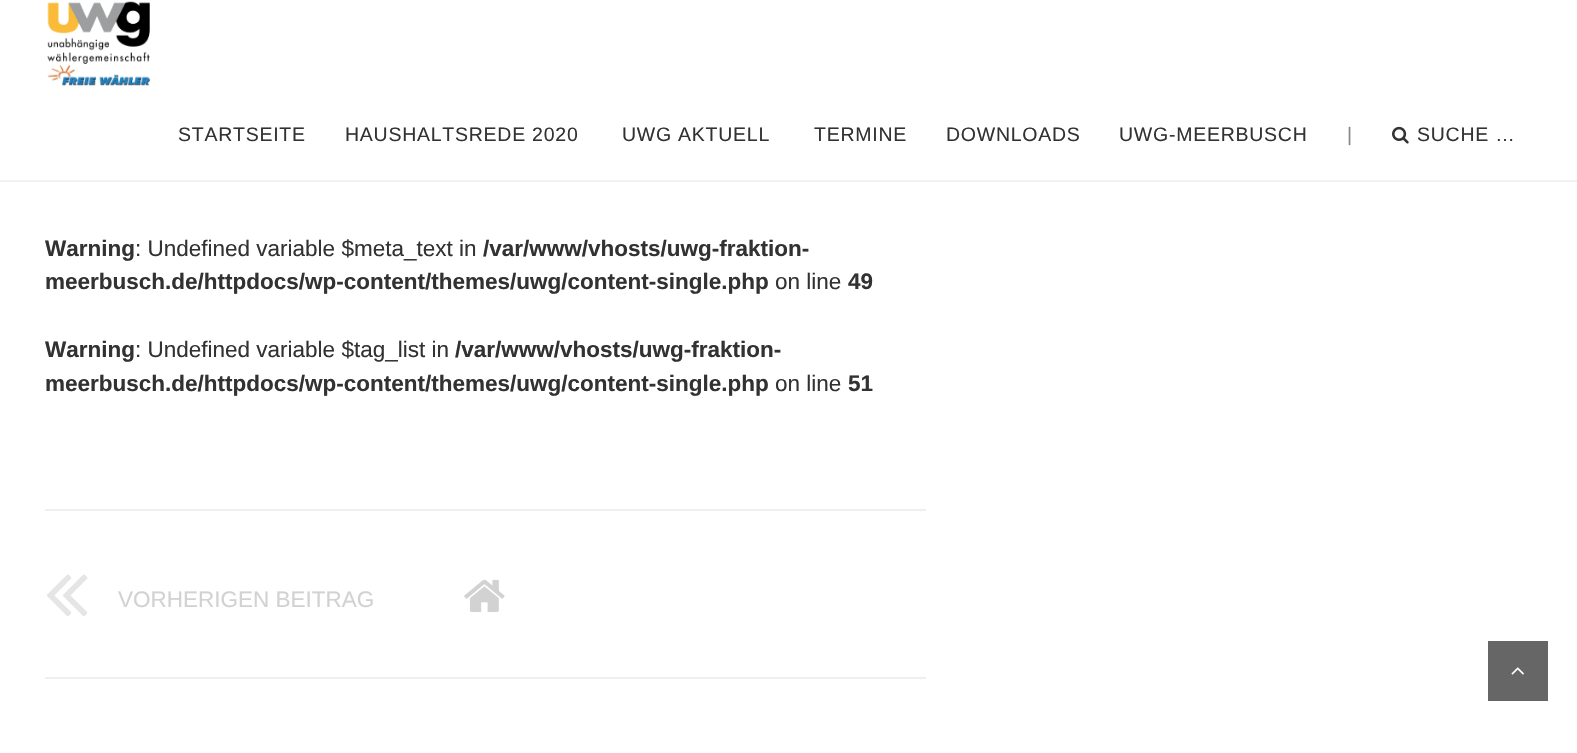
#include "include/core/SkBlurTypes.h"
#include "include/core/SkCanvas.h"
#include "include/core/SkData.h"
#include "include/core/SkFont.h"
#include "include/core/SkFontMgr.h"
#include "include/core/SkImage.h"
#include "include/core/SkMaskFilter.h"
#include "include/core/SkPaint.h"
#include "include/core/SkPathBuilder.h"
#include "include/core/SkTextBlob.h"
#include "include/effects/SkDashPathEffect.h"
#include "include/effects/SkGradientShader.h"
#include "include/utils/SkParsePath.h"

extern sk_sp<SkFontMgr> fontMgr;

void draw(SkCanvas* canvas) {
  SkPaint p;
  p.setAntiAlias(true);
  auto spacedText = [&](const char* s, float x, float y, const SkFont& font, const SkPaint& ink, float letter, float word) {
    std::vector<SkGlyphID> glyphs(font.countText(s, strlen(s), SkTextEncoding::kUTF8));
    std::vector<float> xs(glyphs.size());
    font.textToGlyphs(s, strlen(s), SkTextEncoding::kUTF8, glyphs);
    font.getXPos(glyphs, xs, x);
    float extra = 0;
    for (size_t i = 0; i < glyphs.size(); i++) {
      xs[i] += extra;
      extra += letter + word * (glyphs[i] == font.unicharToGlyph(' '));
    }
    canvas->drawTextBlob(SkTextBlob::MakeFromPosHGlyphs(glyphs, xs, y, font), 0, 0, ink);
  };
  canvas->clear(SK_ColorWHITE);
  p.setColor(SkColorSetRGB(242, 242, 242));
  canvas->drawRect(SkRect::MakeLTRB(0, 180, 1577, 182), p);
  canvas->drawImageRect(SkImages::DeferredFromEncodedData(SkData::MakeFromFileName("images/1.png")), SkRect::MakeLTRB(47, 1, 150, 86), SkSamplingOptions());
  canvas->drawImageRect(SkImages::DeferredFromEncodedData(SkData::MakeFromFileName("images/2.png")), SkRect::MakeLTRB(1392, 126, 1409, 144), SkSamplingOptions());
  p.setColor(SkColorSetRGB(239, 239, 239));
  canvas->drawRect(SkRect::MakeLTRB(45, 509, 926, 511), p);
  canvas->drawRect(SkRect::MakeLTRB(45, 677, 926, 679), p);
  canvas->drawImageRect(SkImages::DeferredFromEncodedData(SkData::MakeFromFileName("images/3.png")), SkRect::MakeLTRB(47, 574, 88, 617), SkSamplingOptions());
  canvas->drawImageRect(SkImages::DeferredFromEncodedData(SkData::MakeFromFileName("images/4.png")), SkRect::MakeLTRB(464, 579, 505, 612), SkSamplingOptions());
  p.setColor(SkColorSetRGB(102, 102, 102));
  canvas->drawRect(SkRect::MakeLTRB(1488, 641, 1548, 701), p);
  canvas->drawImageRect(SkImages::DeferredFromEncodedData(SkData::MakeFromFileName("images/5.png")), SkRect::MakeLTRB(1511, 667, 1524, 675), SkSamplingOptions());
  SkFont font1(fontMgr->matchFamilyStyle("Liberation Sans", SkFontStyle::Normal()), 19.5f);
  font1.setSubpixel(true);
  p.setColor(SkColorSetRGB(50, 50, 50));
  spacedText("STARTSEITE", 178, 141, font1, p, 0.75f, 0);
  spacedText("HAUSHALTSREDE 2020", 345, 141, font1, p, 0.75f, 0);
  spacedText("UWG AKTUELL", 622, 141, font1, p, 0.75f, 0);
  spacedText("TERMINE", 814, 141, font1, p, 0.75f, 0);
  spacedText("DOWNLOADS", 946, 141, font1, p, 0.75f, 0);
  spacedText("UWG-MEERBUSCH", 1119, 141, font1, p, 0.75f, 0);
  p.setColor(SkColorSetRGB(136, 136, 136));
  spacedText("|", 1347, 141, font1, p, 0.75f, 0);
  p.setColor(SkColorSetRGB(50, 50, 50));
  spacedText("SUCHE …", 1417, 141, font1, p, 0.75f, 0);
  SkFont font2(fontMgr->matchFamilyStyle("Liberation Sans", SkFontStyle::Bold()), 22.5f);
  font2.setSubpixel(true);
  canvas->drawString("Warning", 45, 256, font2, p);
  SkFont font3(fontMgr->matchFamilyStyle("Liberation Sans", SkFontStyle::Normal()), 22.5f);
  font3.setSubpixel(true);
  canvas->drawString(": Undefined variable $meta_text in", 135, 256, font3, p);
  canvas->drawString("/var/www/vhosts/uwg-fraktion-", 483, 256, font2, p);
  canvas->drawString("meerbusch.de/httpdocs/wp-content/themes/uwg/content-single.php", 45, 289, font2, p);
  canvas->drawString("on line", 775, 289, font3, p);
  canvas->drawString("49", 848, 289, font2, p);
  canvas->drawString("Warning", 45, 357, font2, p);
  canvas->drawString(": Undefined variable $tag_list in", 135, 357, font3, p);
  canvas->drawString("/var/www/vhosts/uwg-fraktion-", 455, 357, font2, p);
  canvas->drawString("meerbusch.de/httpdocs/wp-content/themes/uwg/content-single.php", 45, 391, font2, p);
  canvas->drawString("on line", 775, 391, font3, p);
  canvas->drawString("51", 848, 391, font2, p);
  p.setColor(SkColorSetRGB(210, 210, 210));
  canvas->drawString("VORHERIGEN BEITRAG", 118, 607, font3, p);
}
